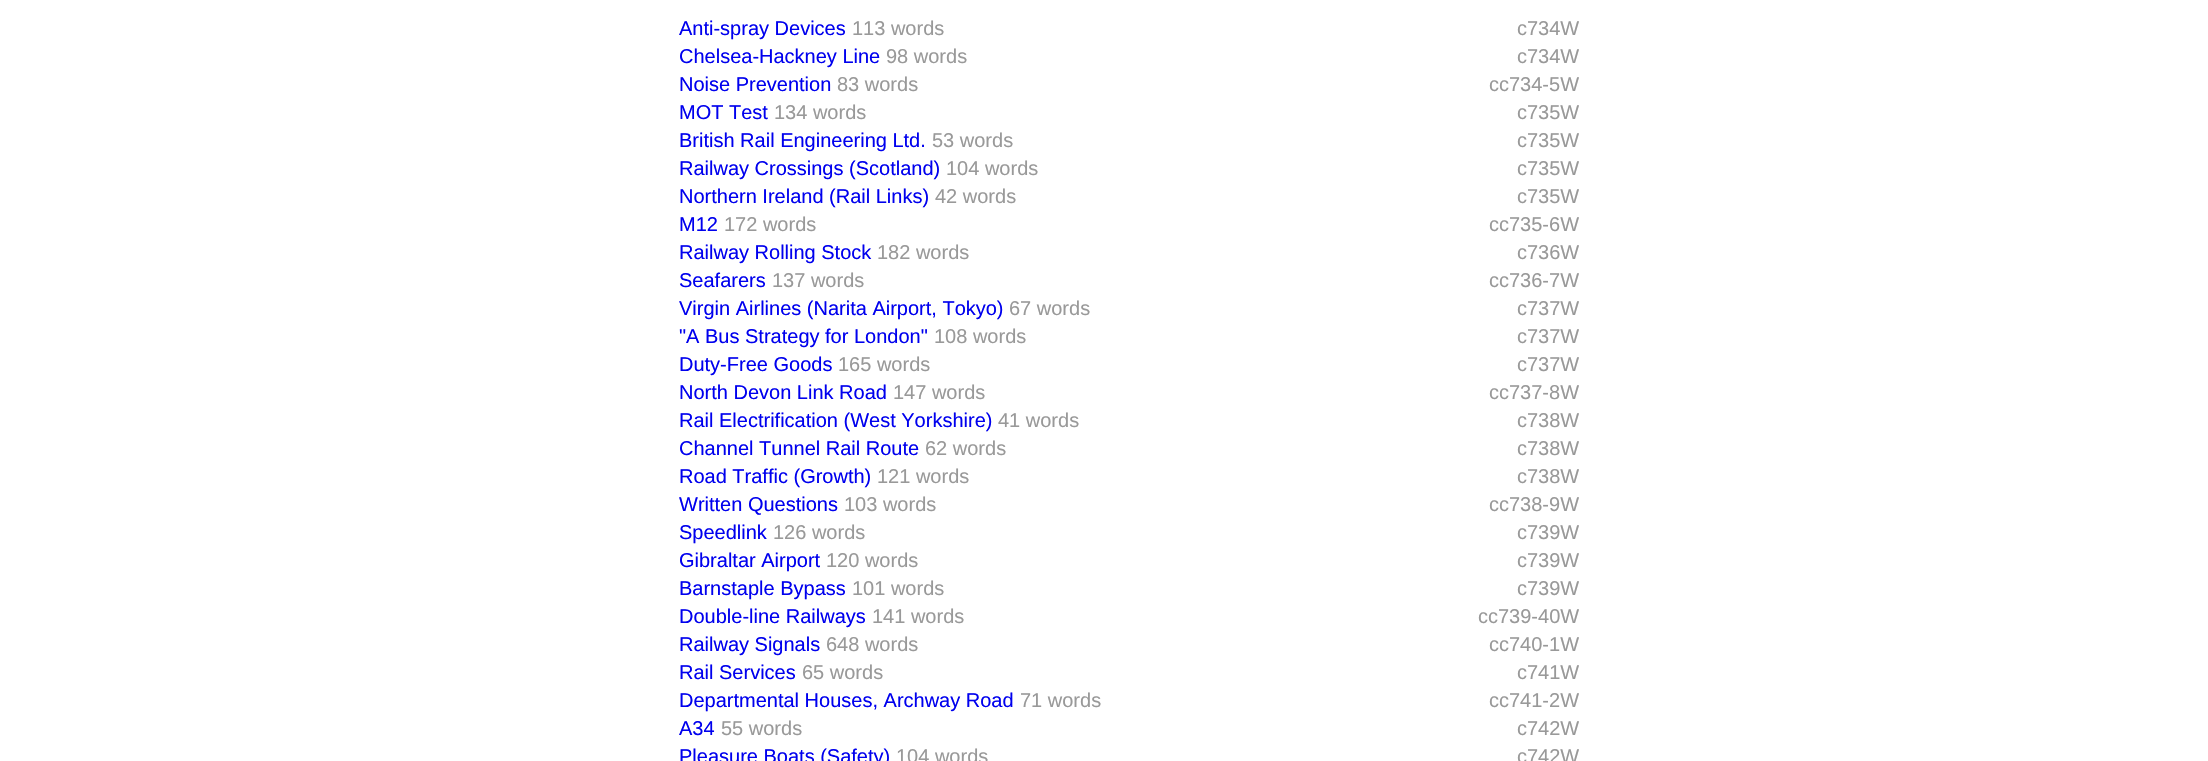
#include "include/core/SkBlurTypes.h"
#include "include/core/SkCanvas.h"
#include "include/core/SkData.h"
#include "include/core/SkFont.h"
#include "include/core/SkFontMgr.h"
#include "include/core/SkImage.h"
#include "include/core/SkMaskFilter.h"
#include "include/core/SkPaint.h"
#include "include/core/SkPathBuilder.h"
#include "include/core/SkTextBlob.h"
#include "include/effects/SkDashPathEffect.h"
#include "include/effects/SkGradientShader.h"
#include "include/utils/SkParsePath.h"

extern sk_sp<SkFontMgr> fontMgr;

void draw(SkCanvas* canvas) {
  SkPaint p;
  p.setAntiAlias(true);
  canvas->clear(SK_ColorWHITE);
  SkFont font1(fontMgr->matchFamilyStyle("Liberation Sans", SkFontStyle::Normal()), 20);
  font1.setSubpixel(true);
  p.setColor(SkColorSetRGB(0, 0, 238));
  canvas->drawString("Anti-spray Devices", 679, 35, font1, p);
  p.setColor(SkColorSetRGB(153, 153, 153));
  canvas->drawString("113 words", 852, 35, font1, p);
  canvas->drawString("c734W", 1517, 35, font1, p);
  p.setColor(SkColorSetRGB(0, 0, 238));
  canvas->drawString("Chelsea-Hackney Line", 679, 63, font1, p);
  p.setColor(SkColorSetRGB(153, 153, 153));
  canvas->drawString("98 words", 886, 63, font1, p);
  canvas->drawString("c734W", 1517, 63, font1, p);
  p.setColor(SkColorSetRGB(0, 0, 238));
  canvas->drawString("Noise Prevention", 679, 91, font1, p);
  p.setColor(SkColorSetRGB(153, 153, 153));
  canvas->drawString("83 words", 837, 91, font1, p);
  canvas->drawString("cc734-5W", 1489, 91, font1, p);
  p.setColor(SkColorSetRGB(0, 0, 238));
  canvas->drawString("MOT Test", 679, 119, font1, p);
  p.setColor(SkColorSetRGB(153, 153, 153));
  canvas->drawString("134 words", 774, 119, font1, p);
  canvas->drawString("c735W", 1517, 119, font1, p);
  p.setColor(SkColorSetRGB(0, 0, 238));
  canvas->drawString("British Rail Engineering Ltd.", 679, 147, font1, p);
  p.setColor(SkColorSetRGB(153, 153, 153));
  canvas->drawString("53 words", 932, 147, font1, p);
  canvas->drawString("c735W", 1517, 147, font1, p);
  p.setColor(SkColorSetRGB(0, 0, 238));
  canvas->drawString("Railway Crossings (Scotland)", 679, 175, font1, p);
  p.setColor(SkColorSetRGB(153, 153, 153));
  canvas->drawString("104 words", 946, 175, font1, p);
  canvas->drawString("c735W", 1517, 175, font1, p);
  p.setColor(SkColorSetRGB(0, 0, 238));
  canvas->drawString("Northern Ireland (Rail Links)", 679, 203, font1, p);
  p.setColor(SkColorSetRGB(153, 153, 153));
  canvas->drawString("42 words", 935, 203, font1, p);
  canvas->drawString("c735W", 1517, 203, font1, p);
  p.setColor(SkColorSetRGB(0, 0, 238));
  canvas->drawString("M12", 679, 231, font1, p);
  p.setColor(SkColorSetRGB(153, 153, 153));
  canvas->drawString("172 words", 724, 231, font1, p);
  canvas->drawString("cc735-6W", 1489, 231, font1, p);
  p.setColor(SkColorSetRGB(0, 0, 238));
  canvas->drawString("Railway Rolling Stock", 679, 259, font1, p);
  p.setColor(SkColorSetRGB(153, 153, 153));
  canvas->drawString("182 words", 877, 259, font1, p);
  canvas->drawString("c736W", 1517, 259, font1, p);
  p.setColor(SkColorSetRGB(0, 0, 238));
  canvas->drawString("Seafarers", 679, 287, font1, p);
  p.setColor(SkColorSetRGB(153, 153, 153));
  canvas->drawString("137 words", 772, 287, font1, p);
  canvas->drawString("cc736-7W", 1489, 287, font1, p);
  p.setColor(SkColorSetRGB(0, 0, 238));
  canvas->drawString("Virgin Airlines (Narita Airport, Tokyo)", 679, 315, font1, p);
  p.setColor(SkColorSetRGB(153, 153, 153));
  canvas->drawString("67 words", 1009, 315, font1, p);
  canvas->drawString("c737W", 1517, 315, font1, p);
  p.setColor(SkColorSetRGB(0, 0, 238));
  canvas->drawString("\"A Bus Strategy for London\"", 679, 343, font1, p);
  p.setColor(SkColorSetRGB(153, 153, 153));
  canvas->drawString("108 words", 934, 343, font1, p);
  canvas->drawString("c737W", 1517, 343, font1, p);
  p.setColor(SkColorSetRGB(0, 0, 238));
  canvas->drawString("Duty-Free Goods", 679, 371, font1, p);
  p.setColor(SkColorSetRGB(153, 153, 153));
  canvas->drawString("165 words", 838, 371, font1, p);
  canvas->drawString("c737W", 1517, 371, font1, p);
  p.setColor(SkColorSetRGB(0, 0, 238));
  canvas->drawString("North Devon Link Road", 679, 399, font1, p);
  p.setColor(SkColorSetRGB(153, 153, 153));
  canvas->drawString("147 words", 893, 399, font1, p);
  canvas->drawString("cc737-8W", 1489, 399, font1, p);
  p.setColor(SkColorSetRGB(0, 0, 238));
  canvas->drawString("Rail Electrification (West Yorkshire)", 679, 427, font1, p);
  p.setColor(SkColorSetRGB(153, 153, 153));
  canvas->drawString("41 words", 998, 427, font1, p);
  canvas->drawString("c738W", 1517, 427, font1, p);
  p.setColor(SkColorSetRGB(0, 0, 238));
  canvas->drawString("Channel Tunnel Rail Route", 679, 455, font1, p);
  p.setColor(SkColorSetRGB(153, 153, 153));
  canvas->drawString("62 words", 925, 455, font1, p);
  canvas->drawString("c738W", 1517, 455, font1, p);
  p.setColor(SkColorSetRGB(0, 0, 238));
  canvas->drawString("Road Traffic (Growth)", 679, 483, font1, p);
  p.setColor(SkColorSetRGB(153, 153, 153));
  canvas->drawString("121 words", 877, 483, font1, p);
  canvas->drawString("c738W", 1517, 483, font1, p);
  p.setColor(SkColorSetRGB(0, 0, 238));
  canvas->drawString("Written Questions", 679, 511, font1, p);
  p.setColor(SkColorSetRGB(153, 153, 153));
  canvas->drawString("103 words", 844, 511, font1, p);
  canvas->drawString("cc738-9W", 1489, 511, font1, p);
  p.setColor(SkColorSetRGB(0, 0, 238));
  canvas->drawString("Speedlink", 679, 539, font1, p);
  p.setColor(SkColorSetRGB(153, 153, 153));
  canvas->drawString("126 words", 773, 539, font1, p);
  canvas->drawString("c739W", 1517, 539, font1, p);
  p.setColor(SkColorSetRGB(0, 0, 238));
  canvas->drawString("Gibraltar Airport", 679, 567, font1, p);
  p.setColor(SkColorSetRGB(153, 153, 153));
  canvas->drawString("120 words", 826, 567, font1, p);
  canvas->drawString("c739W", 1517, 567, font1, p);
  p.setColor(SkColorSetRGB(0, 0, 238));
  canvas->drawString("Barnstaple Bypass", 679, 595, font1, p);
  p.setColor(SkColorSetRGB(153, 153, 153));
  canvas->drawString("101 words", 852, 595, font1, p);
  canvas->drawString("c739W", 1517, 595, font1, p);
  p.setColor(SkColorSetRGB(0, 0, 238));
  canvas->drawString("Double-line Railways", 679, 623, font1, p);
  p.setColor(SkColorSetRGB(153, 153, 153));
  canvas->drawString("141 words", 872, 623, font1, p);
  canvas->drawString("cc739-40W", 1478, 623, font1, p);
  p.setColor(SkColorSetRGB(0, 0, 238));
  canvas->drawString("Railway Signals", 679, 651, font1, p);
  p.setColor(SkColorSetRGB(153, 153, 153));
  canvas->drawString("648 words", 826, 651, font1, p);
  canvas->drawString("cc740-1W", 1489, 651, font1, p);
  p.setColor(SkColorSetRGB(0, 0, 238));
  canvas->drawString("Rail Services", 679, 679, font1, p);
  p.setColor(SkColorSetRGB(153, 153, 153));
  canvas->drawString("65 words", 802, 679, font1, p);
  canvas->drawString("c741W", 1517, 679, font1, p);
  p.setColor(SkColorSetRGB(0, 0, 238));
  canvas->drawString("Departmental Houses, Archway Road", 679, 707, font1, p);
  p.setColor(SkColorSetRGB(153, 153, 153));
  canvas->drawString("71 words", 1020, 707, font1, p);
  canvas->drawString("cc741-2W", 1489, 707, font1, p);
  p.setColor(SkColorSetRGB(0, 0, 238));
  canvas->drawString("A34", 679, 735, font1, p);
  p.setColor(SkColorSetRGB(153, 153, 153));
  canvas->drawString("55 words", 721, 735, font1, p);
  canvas->drawString("c742W", 1517, 735, font1, p);
  p.setColor(SkColorSetRGB(0, 0, 238));
  canvas->drawString("Pleasure Boats (Safety)", 679, 763, font1, p);
  p.setColor(SkColorSetRGB(153, 153, 153));
  canvas->drawString("104 words", 896, 763, font1, p);
  canvas->drawString("c742W", 1517, 763, font1, p);
}
